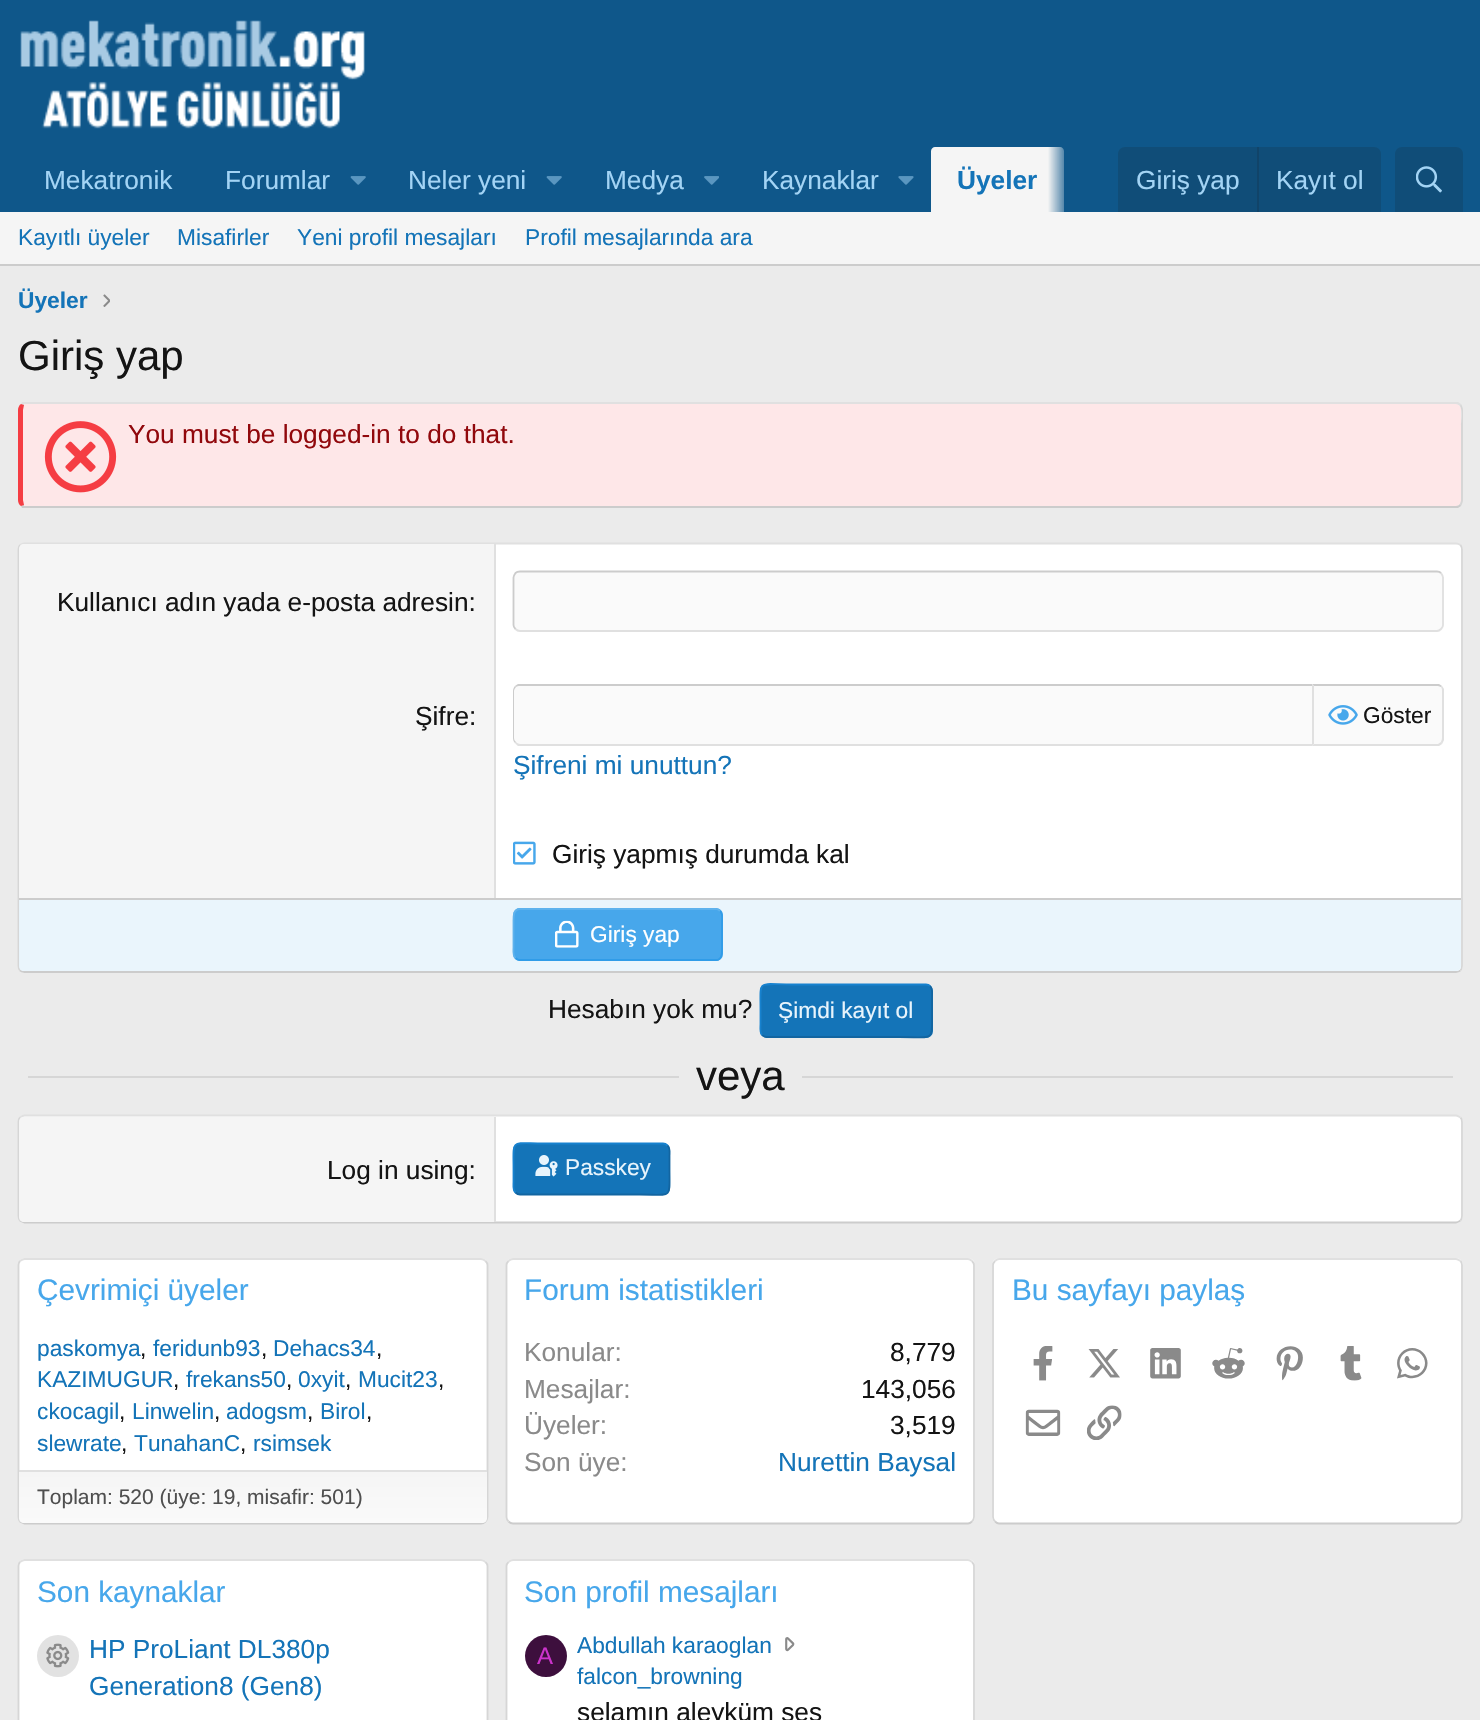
#include "include/core/SkBlurTypes.h"
#include "include/core/SkCanvas.h"
#include "include/core/SkData.h"
#include "include/core/SkFont.h"
#include "include/core/SkFontMgr.h"
#include "include/core/SkImage.h"
#include "include/core/SkMaskFilter.h"
#include "include/core/SkPaint.h"
#include "include/core/SkPathBuilder.h"
#include "include/core/SkTextBlob.h"
#include "include/effects/SkDashPathEffect.h"
#include "include/effects/SkGradientShader.h"
#include "include/utils/SkParsePath.h"

extern sk_sp<SkFontMgr> fontMgr;

void draw(SkCanvas* canvas) {
  SkPaint p;
  p.setAntiAlias(true);
  canvas->clear(SkColorSetRGB(235, 235, 235));
  p.setColor(SkColorSetRGB(15, 87, 138));
  canvas->drawRect(SkRect::MakeLTRB(0, 0, 1480, 212), p);
  canvas->drawImageRect(SkImages::DeferredFromEncodedData(SkData::MakeFromFileName("images/1.png")), SkRect::MakeLTRB(20, 20, 365, 129), SkSamplingOptions());
  canvas->drawImageRect(SkImages::DeferredFromEncodedData(SkData::MakeFromFileName("images/2.png")), SkRect::MakeLTRB(350, 176, 366, 185), SkSamplingOptions());
  canvas->drawImageRect(SkImages::DeferredFromEncodedData(SkData::MakeFromFileName("images/2.png")), SkRect::MakeLTRB(546, 176, 562, 185), SkSamplingOptions());
  canvas->drawImageRect(SkImages::DeferredFromEncodedData(SkData::MakeFromFileName("images/3.png")), SkRect::MakeLTRB(704, 176, 719, 185), SkSamplingOptions());
  canvas->drawImageRect(SkImages::DeferredFromEncodedData(SkData::MakeFromFileName("images/4.png")), SkRect::MakeLTRB(898, 176, 914, 185), SkSamplingOptions());
  p.setColor(SkColorSetRGB(245, 245, 245));
  canvas->drawPath(SkPathBuilder().moveTo(935, 147).lineTo(1060, 147).cubicTo(1062, 147, 1064, 149, 1064, 151).lineTo(1064, 212).lineTo(931, 212).lineTo(931, 151).cubicTo(931, 149, 933, 147, 935, 147).close().detach(), p);
  {
    const SkColor colors[] = {SkColorSetARGB(0, 15, 87, 138), SkColorSetRGB(15, 87, 138)};
    const float stops[] = {0, 0.33f};
    const SkPoint ends[] = {{1048, 179}, {1118, 179}};
    p.setShader(SkGradientShader::MakeLinear(ends, colors, stops, 2, SkTileMode::kClamp));
    p.setAlpha(255);
  }
  canvas->drawRect(SkRect::MakeLTRB(1048, 147, 1064, 212), p);
  p.setShader(nullptr);
  p.setColor(SkColorSetRGB(16, 77, 120));
  canvas->drawPath(SkPathBuilder().moveTo(1125, 147).lineTo(1374, 147).cubicTo(1378, 147, 1381, 150, 1381, 154).lineTo(1381, 212).lineTo(1118, 212).lineTo(1118, 154).cubicTo(1118, 150, 1121, 147, 1125, 147).close().detach(), p);
  p.setColor(SkColorSetRGB(17, 68, 105));
  canvas->drawRect(SkRect::MakeLTRB(1257, 147, 1259, 212), p);
  p.setColor(SkColorSetRGB(16, 77, 120));
  canvas->drawPath(SkPathBuilder().moveTo(1402, 147).lineTo(1456, 147).cubicTo(1460, 147, 1463, 150, 1463, 154).lineTo(1463, 212).lineTo(1395, 212).lineTo(1395, 154).cubicTo(1395, 150, 1398, 147, 1402, 147).close().detach(), p);
  canvas->drawImageRect(SkImages::DeferredFromEncodedData(SkData::MakeFromFileName("images/5.png")), SkRect::MakeLTRB(1416, 166, 1442, 193), SkSamplingOptions());
  p.setColor(SkColorSetRGB(245, 245, 245));
  canvas->drawRect(SkRect::MakeLTRB(0, 212, 1480, 264), p);
  p.setColor(SkColorSetRGB(204, 204, 204));
  canvas->drawRect(SkRect::MakeLTRB(0, 264, 1480, 266), p);
  canvas->drawImageRect(SkImages::DeferredFromEncodedData(SkData::MakeFromFileName("images/6.png")), SkRect::MakeLTRB(103, 294, 110, 307), SkSamplingOptions());
  p.setColor(SkColorSetRGB(254, 231, 232));
  canvas->drawPath(SkPathBuilder().moveTo(24, 404).lineTo(1456, 404).cubicTo(1459, 404, 1461, 407, 1461, 410).lineTo(1461, 500).cubicTo(1461, 503, 1459, 506, 1456, 506).lineTo(24, 506).cubicTo(24, 506, 23, 503, 23, 500).lineTo(23, 410).cubicTo(23, 407, 24, 404, 24, 404).close().detach(), p);
  p.setColor(SkColorSetRGB(224, 224, 224));
  canvas->drawPath(SkPathBuilder().moveTo(24, 404).lineTo(24, 405).lineTo(21, 404).lineTo(22, 402).lineTo(1458, 402).lineTo(1461, 404).lineTo(1460, 406).cubicTo(1459, 405, 1458, 404, 1456, 404).close().detach(), p);
  p.setColor(SkColorSetRGB(214, 214, 214));
  canvas->drawPath(SkPathBuilder().moveTo(1463, 500).lineTo(1463, 410).cubicTo(1463, 408, 1462, 406, 1461, 404).lineTo(1460, 406).cubicTo(1463, 410, 1461, 424, 1461, 425).lineTo(1461, 501).lineTo(1460, 504).lineTo(1461, 506).cubicTo(1462, 504, 1463, 502, 1463, 500).close().detach(), p);
  p.setColor(SkColorSetRGB(204, 204, 204));
  canvas->drawPath(SkPathBuilder().moveTo(22, 508).lineTo(21, 506).lineTo(24, 505).lineTo(24, 506).lineTo(1456, 506).cubicTo(1458, 506, 1459, 505, 1460, 504).lineTo(1461, 506).lineTo(1458, 508).close().detach(), p);
  p.setColor(SkColorSetRGB(245, 61, 67));
  canvas->drawPath(SkPathBuilder().moveTo(21, 506).cubicTo(19, 505, 18, 502, 18, 500).lineTo(18, 410).cubicTo(18, 408, 19, 405, 21, 404).lineTo(24, 405).lineTo(23, 410).lineTo(23, 500).lineTo(24, 505).close().detach(), p);
  canvas->drawImageRect(SkImages::DeferredFromEncodedData(SkData::MakeFromFileName("images/7.png")), SkRect::MakeLTRB(44, 421, 117, 493), SkSamplingOptions());
  p.setColor(SK_ColorWHITE);
  canvas->drawRoundRect(SkRect::MakeLTRB(18, 543, 1463, 973), 7, 7, p);
  p.setStyle(SkPaint::kStroke_Style);
  p.setStrokeWidth(1.8f);
  p.setColor(SkColorSetRGB(224, 224, 224));
  canvas->drawPath(SkPathBuilder().moveTo(20, 545).cubicTo(21.5f, 544, 23, 543.5f, 24.5f, 543.5f).lineTo(1456, 543.5f).cubicTo(1457.5f, 543.5f, 1459, 544, 1460.5f, 545).detach(), p);
  p.setColor(SkColorSetRGB(214, 214, 214));
  canvas->drawPath(SkPathBuilder().moveTo(1460.5f, 545).cubicTo(1461.5f, 546.5f, 1462, 548, 1462, 549.5f).lineTo(1462, 966).cubicTo(1462, 967.5f, 1461.5f, 969, 1460.5f, 970.5f).detach(), p);
  p.setColor(SkColorSetRGB(204, 204, 204));
  canvas->drawPath(SkPathBuilder().moveTo(1460.5f, 970.5f).cubicTo(1459, 971.5f, 1457.5f, 972, 1456, 972).lineTo(24.5f, 972).cubicTo(23, 972, 21.5f, 971.5f, 20, 970.5f).detach(), p);
  p.setColor(SkColorSetRGB(214, 214, 214));
  canvas->drawPath(SkPathBuilder().moveTo(20, 970.5f).cubicTo(19, 969, 18.5f, 967.5f, 18.5f, 966).lineTo(18.5f, 549.5f).cubicTo(18.5f, 548, 19, 546.5f, 20, 545).detach(), p);
  p.setStyle(SkPaint::kFill_Style);
  p.setColor(SkColorSetRGB(245, 245, 245));
  canvas->drawPath(SkPathBuilder().moveTo(24, 544).lineTo(495, 544).lineTo(495, 658).lineTo(19, 658).lineTo(19, 549).cubicTo(19, 546, 21, 544, 24, 544).close().detach(), p);
  p.setColor(SkColorSetRGB(224, 224, 224));
  canvas->drawRect(SkRect::MakeLTRB(494, 544, 496, 898), p);
  p.setColor(SkColorSetRGB(250, 250, 250));
  canvas->drawRoundRect(SkRect::MakeLTRB(513, 571, 1444, 632), 7, 7, p);
  p.setStyle(SkPaint::kStroke_Style);
  p.setColor(SkColorSetRGB(224, 224, 224));
  canvas->drawPath(SkPathBuilder().moveTo(1441, 573).cubicTo(1442, 574.5f, 1443, 576, 1443, 577.5f).lineTo(1443, 625).cubicTo(1443, 626.5f, 1442, 628, 1441, 629).cubicTo(1440, 630, 1438.5f, 631, 1437, 631).lineTo(520, 631).cubicTo(518, 631, 516.5f, 630, 515.5f, 629).detach(), p);
  p.setColor(SkColorSetRGB(204, 204, 204));
  canvas->drawPath(SkPathBuilder().moveTo(515.5f, 629).cubicTo(514.5f, 628, 513.5f, 626.5f, 513.5f, 625).lineTo(513.5f, 577.5f).cubicTo(513.5f, 576, 514.5f, 574.5f, 515.5f, 573).cubicTo(516.5f, 572, 518, 571.5f, 520, 571.5f).lineTo(1437, 571.5f).cubicTo(1438.5f, 571.5f, 1440, 572, 1441, 573).detach(), p);
  p.setStyle(SkPaint::kFill_Style);
  p.setColor(SkColorSetRGB(245, 245, 245));
  canvas->drawRect(SkRect::MakeLTRB(19, 658, 494, 898), p);
  p.setColor(SkColorSetRGB(250, 250, 250));
  canvas->drawPath(SkPathBuilder().moveTo(520, 684).lineTo(1313, 684).lineTo(1313, 746).lineTo(520, 746).cubicTo(516, 746, 513, 743, 513, 739).lineTo(513, 691).cubicTo(513, 687, 516, 684, 520, 684).close().detach(), p);
  p.setColor(SkColorSetRGB(204, 204, 204));
  canvas->drawPath(SkPathBuilder().moveTo(520, 686).cubicTo(518, 686, 517, 686, 516, 687).lineTo(515, 686).lineTo(518, 684).lineTo(1312, 684).lineTo(1312, 686).close().detach(), p);
  p.setColor(SkColorSetRGB(224, 224, 224));
  canvas->drawPath(SkPathBuilder().moveTo(518, 746).lineTo(515, 743).lineTo(516, 742).cubicTo(517, 743, 519, 744, 520, 744).lineTo(1312, 744).lineTo(1312, 746).close().detach(), p);
  p.setColor(SkColorSetRGB(204, 204, 204));
  canvas->drawPath(SkPathBuilder().moveTo(515, 743).cubicTo(514, 742, 513, 740, 513, 738).lineTo(513, 691).cubicTo(513, 689, 514, 687, 515, 686).lineTo(516, 687).cubicTo(515, 688, 514, 690, 514, 691).lineTo(514, 738).cubicTo(514, 740, 515, 741, 516, 742).close().detach(), p);
  p.setColor(SkColorSetRGB(250, 250, 250));
  canvas->drawPath(SkPathBuilder().moveTo(1313, 684).lineTo(1437, 684).cubicTo(1441, 684, 1444, 687, 1444, 691).lineTo(1444, 739).cubicTo(1444, 743, 1441, 746, 1437, 746).lineTo(1313, 746).close().detach(), p);
  p.setColor(SkColorSetRGB(204, 204, 204));
  canvas->drawPath(SkPathBuilder().moveTo(1312, 684).lineTo(1439, 684).lineTo(1442, 686).lineTo(1441, 687).lineTo(1438, 686).lineTo(1314, 686).close().detach(), p);
  p.setColor(SkColorSetRGB(224, 224, 224));
  canvas->drawPath(SkPathBuilder().moveTo(1444, 740).lineTo(1442, 744).lineTo(1441, 742).cubicTo(1441, 741, 1442, 740, 1442, 738).lineTo(1442, 691).cubicTo(1442, 690, 1442, 688, 1441, 687).lineTo(1442, 686).lineTo(1444, 689).close().detach(), p);
  canvas->drawPath(SkPathBuilder().moveTo(1442, 744).lineTo(1439, 746).lineTo(1312, 746).lineTo(1314, 744).lineTo(1438, 744).lineTo(1441, 742).close().detach(), p);
  canvas->drawPath(SkPathBuilder().moveTo(1314, 686).lineTo(1312, 684).lineTo(1312, 746).lineTo(1314, 744).close().detach(), p);
  canvas->drawImageRect(SkImages::DeferredFromEncodedData(SkData::MakeFromFileName("images/8.png")), SkRect::MakeLTRB(1328, 705, 1358, 725), SkSamplingOptions());
  canvas->drawImageRect(SkImages::DeferredFromEncodedData(SkData::MakeFromFileName("images/9.png")), SkRect::MakeLTRB(513, 841, 536, 865), SkSamplingOptions());
  p.setColor(SkColorSetARGB(230, 232, 244, 252));
  canvas->drawPath(SkPathBuilder().moveTo(19, 898).lineTo(1461, 898).lineTo(1461, 966).cubicTo(1461, 969, 1459, 971, 1456, 971).lineTo(24, 971).cubicTo(21, 971, 19, 969, 19, 966).close().detach(), p);
  p.setColor(SkColorSetRGB(204, 204, 204));
  canvas->drawRect(SkRect::MakeLTRB(19, 898, 1461, 900), p);
  p.setColor(SkColorSetRGB(71, 167, 235));
  canvas->drawRoundRect(SkRect::MakeLTRB(513, 908, 723, 961), 7, 7, p);
  p.setStyle(SkPaint::kStroke_Style);
  p.setColor(SkColorSetRGB(48, 156, 232));
  canvas->drawPath(SkPathBuilder().moveTo(720, 911).cubicTo(723, 913.5f, 722, 918.5f, 722, 921.5f).lineTo(722, 947.5f).cubicTo(722, 952, 722.5f, 960, 716, 960).lineTo(519, 960).cubicTo(517.5f, 959.5f, 516.5f, 959, 515.5f, 958).detach(), p);
  p.setColor(SkColorSetRGB(94, 178, 237));
  canvas->drawPath(SkPathBuilder().moveTo(515.5f, 958).cubicTo(512.5f, 955.5f, 513.5f, 950.5f, 513.5f, 947.5f).lineTo(513.5f, 921.5f).cubicTo(513.5f, 917, 513, 909, 520, 909).lineTo(716.5f, 909).cubicTo(718, 909.5f, 719, 910, 720, 911).detach(), p);
  canvas->drawImageRect(SkImages::DeferredFromEncodedData(SkData::MakeFromFileName("images/10.png")), SkRect::MakeLTRB(555, 920, 579, 948), SkSamplingOptions());
  p.setStyle(SkPaint::kFill_Style);
  p.setColor(SkColorSetRGB(20, 116, 184));
  canvas->drawRoundRect(SkRect::MakeLTRB(760, 984, 933, 1038), 7, 7, p);
  p.setStyle(SkPaint::kStroke_Style);
  p.setColor(SkColorSetRGB(18, 101, 161));
  canvas->drawPath(SkPathBuilder().moveTo(930, 986).cubicTo(933, 989, 932, 994, 932, 997).lineTo(932, 1010.5f).cubicTo(932, 1043, 935.5f, 1037, 899, 1037).lineTo(766.5f, 1037).cubicTo(765, 1037, 763.5f, 1036, 762, 1035).detach(), p);
  p.setColor(SkColorSetRGB(23, 130, 207));
  canvas->drawPath(SkPathBuilder().moveTo(762, 1035).cubicTo(759.5f, 1032.5f, 760.5f, 1027.5f, 760.5f, 1024).lineTo(760.5f, 1010.5f).cubicTo(760.5f, 978, 756.5f, 984.5f, 793, 984.5f).lineTo(926, 984.5f).cubicTo(927.5f, 984.5f, 929, 985, 930, 986).detach(), p);
  p.setStyle(SkPaint::kFill_Style);
  p.setColor(SkColorSetRGB(214, 214, 214));
  canvas->drawRect(SkRect::MakeLTRB(28, 1076, 679, 1078), p);
  canvas->drawRect(SkRect::MakeLTRB(802, 1076, 1453, 1078), p);
  p.setColor(SK_ColorWHITE);
  canvas->drawRoundRect(SkRect::MakeLTRB(18, 1115, 1463, 1223), 7, 7, p);
  p.setStyle(SkPaint::kStroke_Style);
  p.setColor(SkColorSetRGB(224, 224, 224));
  canvas->drawPath(SkPathBuilder().moveTo(20, 1117.5f).cubicTo(21.5f, 1116.5f, 23, 1115.5f, 24.5f, 1115.5f).lineTo(1456, 1115.5f).cubicTo(1457.5f, 1115.5f, 1459, 1116.5f, 1460.5f, 1117.5f).detach(), p);
  p.setColor(SkColorSetRGB(214, 214, 214));
  canvas->drawPath(SkPathBuilder().moveTo(1460.5f, 1117.5f).cubicTo(1461.5f, 1118.5f, 1462, 1120, 1462, 1122).lineTo(1462, 1216).cubicTo(1462, 1218, 1461.5f, 1219.5f, 1460.5f, 1220.5f).detach(), p);
  p.setColor(SkColorSetRGB(204, 204, 204));
  canvas->drawPath(SkPathBuilder().moveTo(1460.5f, 1220.5f).cubicTo(1459, 1221.5f, 1457.5f, 1222.5f, 1456, 1222.5f).lineTo(24.5f, 1222.5f).cubicTo(23, 1222.5f, 21.5f, 1221.5f, 20, 1220.5f).detach(), p);
  p.setColor(SkColorSetRGB(214, 214, 214));
  canvas->drawPath(SkPathBuilder().moveTo(20, 1220.5f).cubicTo(19, 1219.5f, 18.5f, 1218, 18.5f, 1216).lineTo(18.5f, 1122).cubicTo(18.5f, 1120, 19, 1118.5f, 20, 1117.5f).detach(), p);
  p.setStyle(SkPaint::kFill_Style);
  p.setColor(SkColorSetRGB(245, 245, 245));
  canvas->drawPath(SkPathBuilder().moveTo(24, 1117).lineTo(495, 1117).lineTo(495, 1222).lineTo(24, 1222).cubicTo(21, 1222, 19, 1220, 19, 1217).lineTo(19, 1122).cubicTo(19, 1119, 21, 1117, 24, 1117).close().detach(), p);
  p.setColor(SkColorSetRGB(224, 224, 224));
  canvas->drawRect(SkRect::MakeLTRB(494, 1117, 496, 1222), p);
  p.setColor(SkColorSetRGB(20, 116, 184));
  canvas->drawRoundRect(SkRect::MakeLTRB(513, 1143, 670, 1195), 7, 7, p);
  p.setStyle(SkPaint::kStroke_Style);
  p.setColor(SkColorSetRGB(18, 101, 161));
  canvas->drawPath(SkPathBuilder().moveTo(667.5f, 1145.5f).cubicTo(670.5f, 1148, 669.5f, 1153, 669.5f, 1156).lineTo(669.5f, 1169).cubicTo(669.5f, 1200, 673, 1194.5f, 639.5f, 1194.5f).lineTo(520, 1194.5f).cubicTo(518, 1194.5f, 516.5f, 1193.5f, 515.5f, 1192.5f).detach(), p);
  p.setColor(SkColorSetRGB(23, 130, 207));
  canvas->drawPath(SkPathBuilder().moveTo(515.5f, 1192.5f).cubicTo(512.5f, 1190, 513.5f, 1185, 513.5f, 1182).lineTo(513.5f, 1169).cubicTo(513.5f, 1138, 510, 1143.5f, 543.5f, 1143.5f).lineTo(663, 1143.5f).cubicTo(665, 1143.5f, 666.5f, 1144.5f, 667.5f, 1145.5f).detach(), p);
  canvas->drawImageRect(SkImages::DeferredFromEncodedData(SkData::MakeFromFileName("images/11.png")), SkRect::MakeLTRB(535, 1155, 558, 1177), SkSamplingOptions());
  p.setStyle(SkPaint::kFill_Style);
  p.setColor(SK_ColorWHITE);
  canvas->drawRoundRect(SkRect::MakeLTRB(18, 1258, 488, 1524), 7, 7, p);
  p.setStyle(SkPaint::kStroke_Style);
  p.setColor(SkColorSetRGB(224, 224, 224));
  canvas->drawPath(SkPathBuilder().moveTo(20, 1261).cubicTo(21.5f, 1260, 23, 1259, 24.5f, 1259).lineTo(481, 1259).cubicTo(483, 1259, 484.5f, 1260, 485.5f, 1261).detach(), p);
  p.setColor(SkColorSetRGB(214, 214, 214));
  canvas->drawPath(SkPathBuilder().moveTo(485.5f, 1261).cubicTo(486.5f, 1262, 487.5f, 1263.5f, 487.5f, 1265).lineTo(487.5f, 1517).cubicTo(487.5f, 1519, 486.5f, 1520.5f, 485.5f, 1521.5f).detach(), p);
  p.setColor(SkColorSetRGB(204, 204, 204));
  canvas->drawPath(SkPathBuilder().moveTo(485.5f, 1521.5f).cubicTo(484.5f, 1522.5f, 483, 1523.5f, 481, 1523.5f).lineTo(24.5f, 1523.5f).cubicTo(23, 1523.5f, 21.5f, 1522.5f, 20, 1521.5f).detach(), p);
  p.setColor(SkColorSetRGB(214, 214, 214));
  canvas->drawPath(SkPathBuilder().moveTo(20, 1521.5f).cubicTo(19, 1520.5f, 18.5f, 1519, 18.5f, 1517).lineTo(18.5f, 1265).cubicTo(18.5f, 1263.5f, 19, 1262, 20, 1261).detach(), p);
  p.setStyle(SkPaint::kFill_Style);
  {
    const SkColor colors[] = {SkColorSetRGB(245, 245, 245), SkColorSetRGB(250, 250, 250)};
    const float stops[] = {0, 1};
    const SkPoint ends[] = {{253, 1472}, {253, 1523}};
    p.setShader(SkGradientShader::MakeLinear(ends, colors, stops, 2, SkTileMode::kClamp));
    p.setAlpha(255);
  }
  canvas->drawPath(SkPathBuilder().moveTo(19, 1472).lineTo(487, 1472).lineTo(487, 1518).cubicTo(487, 1521, 485, 1523, 482, 1523).lineTo(24, 1523).cubicTo(21, 1523, 19, 1521, 19, 1518).close().detach(), p);
  p.setShader(nullptr);
  p.setColor(SkColorSetRGB(224, 224, 224));
  canvas->drawRect(SkRect::MakeLTRB(19, 1470, 487, 1472), p);
  p.setColor(SK_ColorWHITE);
  canvas->drawRoundRect(SkRect::MakeLTRB(506, 1258, 975, 1524), 7, 7, p);
  p.setStyle(SkPaint::kStroke_Style);
  p.setColor(SkColorSetRGB(224, 224, 224));
  canvas->drawPath(SkPathBuilder().moveTo(508.5f, 1261).cubicTo(509.5f, 1260, 511, 1259, 513, 1259).lineTo(968, 1259).cubicTo(969.5f, 1259, 971, 1260, 972, 1261).detach(), p);
  p.setColor(SkColorSetRGB(214, 214, 214));
  canvas->drawPath(SkPathBuilder().moveTo(972, 1261).cubicTo(973, 1262, 974, 1263.5f, 974, 1265).lineTo(974, 1517).cubicTo(974, 1519, 973, 1520.5f, 972, 1521.5f).detach(), p);
  p.setColor(SkColorSetRGB(204, 204, 204));
  canvas->drawPath(SkPathBuilder().moveTo(972, 1521.5f).cubicTo(971, 1522.5f, 969.5f, 1523.5f, 968, 1523.5f).lineTo(513, 1523.5f).cubicTo(511, 1523.5f, 509.5f, 1522.5f, 508.5f, 1521.5f).detach(), p);
  p.setColor(SkColorSetRGB(214, 214, 214));
  canvas->drawPath(SkPathBuilder().moveTo(508.5f, 1521.5f).cubicTo(507.5f, 1520.5f, 506.5f, 1519, 506.5f, 1517).lineTo(506.5f, 1265).cubicTo(506.5f, 1263.5f, 507.5f, 1262, 508.5f, 1261).detach(), p);
  p.setStyle(SkPaint::kFill_Style);
  p.setColor(SK_ColorWHITE);
  canvas->drawRoundRect(SkRect::MakeLTRB(992, 1258, 1463, 1524), 7, 7, p);
  p.setStyle(SkPaint::kStroke_Style);
  p.setColor(SkColorSetRGB(224, 224, 224));
  canvas->drawPath(SkPathBuilder().moveTo(995, 1261).cubicTo(996, 1260, 997.5f, 1259, 999, 1259).lineTo(1456, 1259).cubicTo(1457.5f, 1259, 1459, 1260, 1460.5f, 1261).detach(), p);
  p.setColor(SkColorSetRGB(214, 214, 214));
  canvas->drawPath(SkPathBuilder().moveTo(1460.5f, 1261).cubicTo(1461.5f, 1262, 1462, 1263.5f, 1462, 1265).lineTo(1462, 1517).cubicTo(1462, 1519, 1461.5f, 1520.5f, 1460.5f, 1521.5f).detach(), p);
  p.setColor(SkColorSetRGB(204, 204, 204));
  canvas->drawPath(SkPathBuilder().moveTo(1460.5f, 1521.5f).cubicTo(1459, 1522.5f, 1457.5f, 1523.5f, 1456, 1523.5f).lineTo(999, 1523.5f).cubicTo(997.5f, 1523.5f, 996, 1522.5f, 995, 1521.5f).detach(), p);
  p.setColor(SkColorSetRGB(214, 214, 214));
  canvas->drawPath(SkPathBuilder().moveTo(995, 1521.5f).cubicTo(994, 1520.5f, 993, 1519, 993, 1517).lineTo(993, 1265).cubicTo(993, 1263.5f, 994, 1262, 995, 1261).detach(), p);
  canvas->drawImageRect(SkImages::DeferredFromEncodedData(SkData::MakeFromFileName("images/12.png")), SkRect::MakeLTRB(1033, 1346, 1053, 1381), SkSamplingOptions());
  canvas->drawImageRect(SkImages::DeferredFromEncodedData(SkData::MakeFromFileName("images/13.png")), SkRect::MakeLTRB(1088, 1349, 1120, 1378), SkSamplingOptions());
  canvas->drawImageRect(SkImages::DeferredFromEncodedData(SkData::MakeFromFileName("images/14.png")), SkRect::MakeLTRB(1150, 1348, 1181, 1379), SkSamplingOptions());
  canvas->drawImageRect(SkImages::DeferredFromEncodedData(SkData::MakeFromFileName("images/15.png")), SkRect::MakeLTRB(1212, 1348, 1245, 1379), SkSamplingOptions());
  canvas->drawImageRect(SkImages::DeferredFromEncodedData(SkData::MakeFromFileName("images/16.png")), SkRect::MakeLTRB(1276, 1346, 1303, 1381), SkSamplingOptions());
  canvas->drawImageRect(SkImages::DeferredFromEncodedData(SkData::MakeFromFileName("images/17.png")), SkRect::MakeLTRB(1340, 1346, 1362, 1381), SkSamplingOptions());
  canvas->drawImageRect(SkImages::DeferredFromEncodedData(SkData::MakeFromFileName("images/18.png")), SkRect::MakeLTRB(1397, 1348, 1428, 1379), SkSamplingOptions());
  canvas->drawImageRect(SkImages::DeferredFromEncodedData(SkData::MakeFromFileName("images/19.png")), SkRect::MakeLTRB(1025, 1409, 1061, 1436), SkSamplingOptions());
  canvas->drawImageRect(SkImages::DeferredFromEncodedData(SkData::MakeFromFileName("images/20.png")), SkRect::MakeLTRB(1087, 1405, 1122, 1440), SkSamplingOptions());
  p.setStyle(SkPaint::kFill_Style);
  p.setColor(SK_ColorWHITE);
  canvas->drawRoundRect(SkRect::MakeLTRB(18, 1559, 488, 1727), 7, 7, p);
  p.setStyle(SkPaint::kStroke_Style);
  p.setColor(SkColorSetRGB(224, 224, 224));
  canvas->drawPath(SkPathBuilder().moveTo(20, 1562).cubicTo(21.5f, 1561, 23, 1560, 24.5f, 1560).lineTo(481, 1560).cubicTo(483, 1560, 484.5f, 1561, 485.5f, 1562).detach(), p);
  p.setColor(SkColorSetRGB(214, 214, 214));
  canvas->drawPath(SkPathBuilder().moveTo(485.5f, 1562).cubicTo(486.5f, 1563, 487.5f, 1564.5f, 487.5f, 1566).lineTo(487.5f, 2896).cubicTo(487.5f, 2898, 486.5f, 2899.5f, 485.5f, 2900.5f).detach(), p);
  canvas->drawPath(SkPathBuilder().moveTo(20, 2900.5f).cubicTo(19, 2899.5f, 18.5f, 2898, 18.5f, 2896).lineTo(18.5f, 1566).cubicTo(18.5f, 1564.5f, 19, 1563, 20, 1562).detach(), p);
  p.setStyle(SkPaint::kFill_Style);
  p.setColor(SkColorSetRGB(226, 226, 226));
  canvas->drawCircle(58, 1656, 21, p);
  canvas->drawImageRect(SkImages::DeferredFromEncodedData(SkData::MakeFromFileName("images/21.png")), SkRect::MakeLTRB(46, 1643, 70, 1668), SkSamplingOptions());
  p.setColor(SK_ColorWHITE);
  canvas->drawRoundRect(SkRect::MakeLTRB(506, 1559, 975, 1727), 7, 7, p);
  p.setStyle(SkPaint::kStroke_Style);
  p.setColor(SkColorSetRGB(224, 224, 224));
  canvas->drawPath(SkPathBuilder().moveTo(508.5f, 1562).cubicTo(509.5f, 1561, 511, 1560, 513, 1560).lineTo(968, 1560).cubicTo(969.5f, 1560, 971, 1561, 972, 1562).detach(), p);
  p.setColor(SkColorSetRGB(214, 214, 214));
  canvas->drawPath(SkPathBuilder().moveTo(972, 1562).cubicTo(973, 1563, 974, 1564.5f, 974, 1566).lineTo(974, 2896).cubicTo(974, 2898, 973, 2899.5f, 972, 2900.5f).detach(), p);
  canvas->drawPath(SkPathBuilder().moveTo(508.5f, 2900.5f).cubicTo(507.5f, 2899.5f, 506.5f, 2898, 506.5f, 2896).lineTo(506.5f, 1566).cubicTo(506.5f, 1564.5f, 507.5f, 1563, 508.5f, 1562).detach(), p);
  p.setStyle(SkPaint::kFill_Style);
  p.setColor(SkColorSetRGB(61, 15, 61));
  canvas->drawCircle(546, 1656, 21, p);
  canvas->drawImageRect(SkImages::DeferredFromEncodedData(SkData::MakeFromFileName("images/22.png")), SkRect::MakeLTRB(785, 1637, 795, 1652), SkSamplingOptions());
  SkFont font1(fontMgr->matchFamilyStyle("Liberation Sans", SkFontStyle::Normal()), 26.25f);
  font1.setSubpixel(true);
  p.setColor(SkColorSetRGB(163, 212, 245));
  canvas->drawString("Mekatronik", 44, 189, font1, p);
  canvas->drawString("Forumlar", 225, 189, font1, p);
  canvas->drawString("Neler yeni", 408, 189, font1, p);
  canvas->drawString("Medya", 605, 189, font1, p);
  canvas->drawString("Kaynaklar", 762, 189, font1, p);
  SkFont font2(fontMgr->matchFamilyStyle("Liberation Sans", SkFontStyle::Bold()), 26.25f);
  font2.setSubpixel(true);
  p.setColor(SkColorSetRGB(20, 116, 184));
  canvas->drawString("Üyeler", 957, 189, font2, p);
  p.setColor(SkColorSetRGB(163, 212, 245));
  canvas->drawString("Giriş yap", 1136, 189, font1, p);
  canvas->drawString("Kayıt ol", 1276, 189, font1, p);
  SkFont font3(fontMgr->matchFamilyStyle("Liberation Sans", SkFontStyle::Normal()), 22.75f);
  font3.setSubpixel(true);
  p.setColor(SkColorSetRGB(20, 116, 184));
  canvas->drawString("Kayıtlı üyeler", 18, 245, font3, p);
  canvas->drawString("Misafirler", 177, 245, font3, p);
  canvas->drawString("Yeni profil mesajları", 297, 245, font3, p);
  canvas->drawString("Profil mesajlarında ara", 525, 245, font3, p);
  SkFont font4(fontMgr->matchFamilyStyle("Liberation Sans", SkFontStyle::Bold()), 22.75f);
  font4.setSubpixel(true);
  canvas->drawString("Üyeler", 18, 308, font4, p);
  SkFont font5(fontMgr->matchFamilyStyle("Liberation Sans", SkFontStyle::Normal()), 42);
  font5.setSubpixel(true);
  p.setColor(SkColorSetRGB(20, 20, 20));
  canvas->drawString("Giriş yap", 18, 370, font5, p);
  p.setColor(SkColorSetRGB(145, 8, 12));
  canvas->drawString("You must be logged-in to do that.", 128, 443, font1, p);
  p.setColor(SkColorSetRGB(20, 20, 20));
  canvas->drawString("Kullanıcı adın yada e-posta adresin:", 57, 611, font1, p);
  canvas->drawString("Şifre:", 415, 725, font1, p);
  canvas->drawString("Göster", 1363, 723, font3, p);
  p.setColor(SkColorSetRGB(20, 116, 184));
  canvas->drawString("Şifreni mi unuttun?", 513, 774, font1, p);
  p.setColor(SkColorSetRGB(20, 20, 20));
  canvas->drawString("Giriş yapmış durumda kal", 552, 863, font1, p);
  p.setColor(SK_ColorWHITE);
  canvas->drawString("Giriş yap", 590, 942, font3, p);
  p.setColor(SkColorSetRGB(20, 20, 20));
  canvas->drawString("Hesabın yok mu?", 548, 1018, font1, p);
  p.setColor(SkColorSetRGB(232, 244, 252));
  canvas->drawString("Şimdi kayıt ol", 778, 1018, font3, p);
  p.setColor(SkColorSetRGB(20, 20, 20));
  canvas->drawString("veya", 696, 1090, font5, p);
  canvas->drawString("Log in using:", 327, 1179, font1, p);
  p.setColor(SkColorSetRGB(232, 244, 252));
  canvas->drawString("Passkey", 565, 1175, font3, p);
  SkFont font6(fontMgr->matchFamilyStyle("Liberation Sans", SkFontStyle::Normal()), 29.75f);
  font6.setSubpixel(true);
  p.setColor(SkColorSetRGB(71, 167, 235));
  canvas->drawString("Çevrimiçi üyeler", 37, 1300, font6, p);
  p.setColor(SkColorSetRGB(20, 116, 184));
  canvas->drawString("paskomya", 37, 1356, font3, p);
  p.setColor(SkColorSetRGB(20, 20, 20));
  canvas->drawString(",", 140, 1356, font3, p);
  p.setColor(SkColorSetRGB(20, 116, 184));
  canvas->drawString("feridunb93", 153, 1356, font3, p);
  p.setColor(SkColorSetRGB(20, 20, 20));
  canvas->drawString(",", 261, 1356, font3, p);
  p.setColor(SkColorSetRGB(20, 116, 184));
  canvas->drawString("Dehacs34", 273, 1356, font3, p);
  p.setColor(SkColorSetRGB(20, 20, 20));
  canvas->drawString(",", 376, 1356, font3, p);
  p.setColor(SkColorSetRGB(20, 116, 184));
  canvas->drawString("KAZIMUGUR", 37, 1387, font3, p);
  p.setColor(SkColorSetRGB(20, 20, 20));
  canvas->drawString(",", 173, 1387, font3, p);
  p.setColor(SkColorSetRGB(20, 116, 184));
  canvas->drawString("frekans50", 186, 1387, font3, p);
  p.setColor(SkColorSetRGB(20, 20, 20));
  canvas->drawString(",", 286, 1387, font3, p);
  p.setColor(SkColorSetRGB(20, 116, 184));
  canvas->drawString("0xyit", 298, 1387, font3, p);
  p.setColor(SkColorSetRGB(20, 20, 20));
  canvas->drawString(",", 345, 1387, font3, p);
  p.setColor(SkColorSetRGB(20, 116, 184));
  canvas->drawString("Mucit23", 358, 1387, font3, p);
  p.setColor(SkColorSetRGB(20, 20, 20));
  canvas->drawString(",", 438, 1387, font3, p);
  p.setColor(SkColorSetRGB(20, 116, 184));
  canvas->drawString("ckocagil", 37, 1419, font3, p);
  p.setColor(SkColorSetRGB(20, 20, 20));
  canvas->drawString(",", 119, 1419, font3, p);
  p.setColor(SkColorSetRGB(20, 116, 184));
  canvas->drawString("Linwelin", 132, 1419, font3, p);
  p.setColor(SkColorSetRGB(20, 20, 20));
  canvas->drawString(",", 214, 1419, font3, p);
  p.setColor(SkColorSetRGB(20, 116, 184));
  canvas->drawString("adogsm", 226, 1419, font3, p);
  p.setColor(SkColorSetRGB(20, 20, 20));
  canvas->drawString(",", 307, 1419, font3, p);
  p.setColor(SkColorSetRGB(20, 116, 184));
  canvas->drawString("Birol", 320, 1419, font3, p);
  p.setColor(SkColorSetRGB(20, 20, 20));
  canvas->drawString(",", 366, 1419, font3, p);
  p.setColor(SkColorSetRGB(20, 116, 184));
  canvas->drawString("slewrate", 37, 1451, font3, p);
  p.setColor(SkColorSetRGB(20, 20, 20));
  canvas->drawString(",", 121, 1451, font3, p);
  p.setColor(SkColorSetRGB(20, 116, 184));
  canvas->drawString("TunahanC", 134, 1451, font3, p);
  p.setColor(SkColorSetRGB(20, 20, 20));
  canvas->drawString(",", 240, 1451, font3, p);
  p.setColor(SkColorSetRGB(20, 116, 184));
  canvas->drawString("rsimsek", 253, 1451, font3, p);
  SkFont font7(fontMgr->matchFamilyStyle("Liberation Sans", SkFontStyle::Normal()), 21);
  font7.setSubpixel(true);
  p.setColor(SkColorSetRGB(79, 79, 79));
  canvas->drawString("Toplam: 520 (üye: 19, misafir: 501)", 37, 1504, font7, p);
  p.setColor(SkColorSetRGB(71, 167, 235));
  canvas->drawString("Forum istatistikleri", 524, 1300, font6, p);
  p.setColor(SkColorSetRGB(138, 138, 138));
  canvas->drawString("Konular:", 524, 1361, font1, p);
  p.setColor(SkColorSetRGB(20, 20, 20));
  canvas->drawString("8,779", 890, 1361, font1, p);
  p.setColor(SkColorSetRGB(138, 138, 138));
  canvas->drawString("Mesajlar:", 524, 1398, font1, p);
  p.setColor(SkColorSetRGB(20, 20, 20));
  canvas->drawString("143,056", 861, 1398, font1, p);
  p.setColor(SkColorSetRGB(138, 138, 138));
  canvas->drawString("Üyeler:", 524, 1434, font1, p);
  p.setColor(SkColorSetRGB(20, 20, 20));
  canvas->drawString("3,519", 890, 1434, font1, p);
  p.setColor(SkColorSetRGB(138, 138, 138));
  canvas->drawString("Son üye:", 524, 1471, font1, p);
  p.setColor(SkColorSetRGB(20, 116, 184));
  canvas->drawString("Nurettin Baysal", 778, 1471, font1, p);
  p.setColor(SkColorSetRGB(71, 167, 235));
  canvas->drawString("Bu sayfayı paylaş", 1012, 1300, font6, p);
  canvas->drawString("Son kaynaklar", 37, 1602, font6, p);
  p.setColor(SkColorSetRGB(20, 116, 184));
  canvas->drawString("HP ProLiant DL380p", 89, 1658, font1, p);
  canvas->drawString("Generation8 (Gen8)", 89, 1695, font1, p);
  p.setColor(SkColorSetRGB(71, 167, 235));
  canvas->drawString("Son profil mesajları", 524, 1602, font6, p);
  SkFont font8(fontMgr->matchFamilyStyle("Liberation Sans", SkFontStyle::Normal()), 24);
  font8.setSubpixel(true);
  p.setColor(SkColorSetRGB(204, 51, 204));
  canvas->drawString("A", 537, 1664, font8, p);
  p.setColor(SkColorSetRGB(20, 116, 184));
  canvas->drawString("Abdullah karaoglan", 577, 1653, font3, p);
  canvas->drawString("falcon_browning", 577, 1684, font3, p);
  p.setColor(SkColorSetRGB(20, 20, 20));
  canvas->drawString("selamın aleyküm ses", 577, 1721, font1, p);
}
